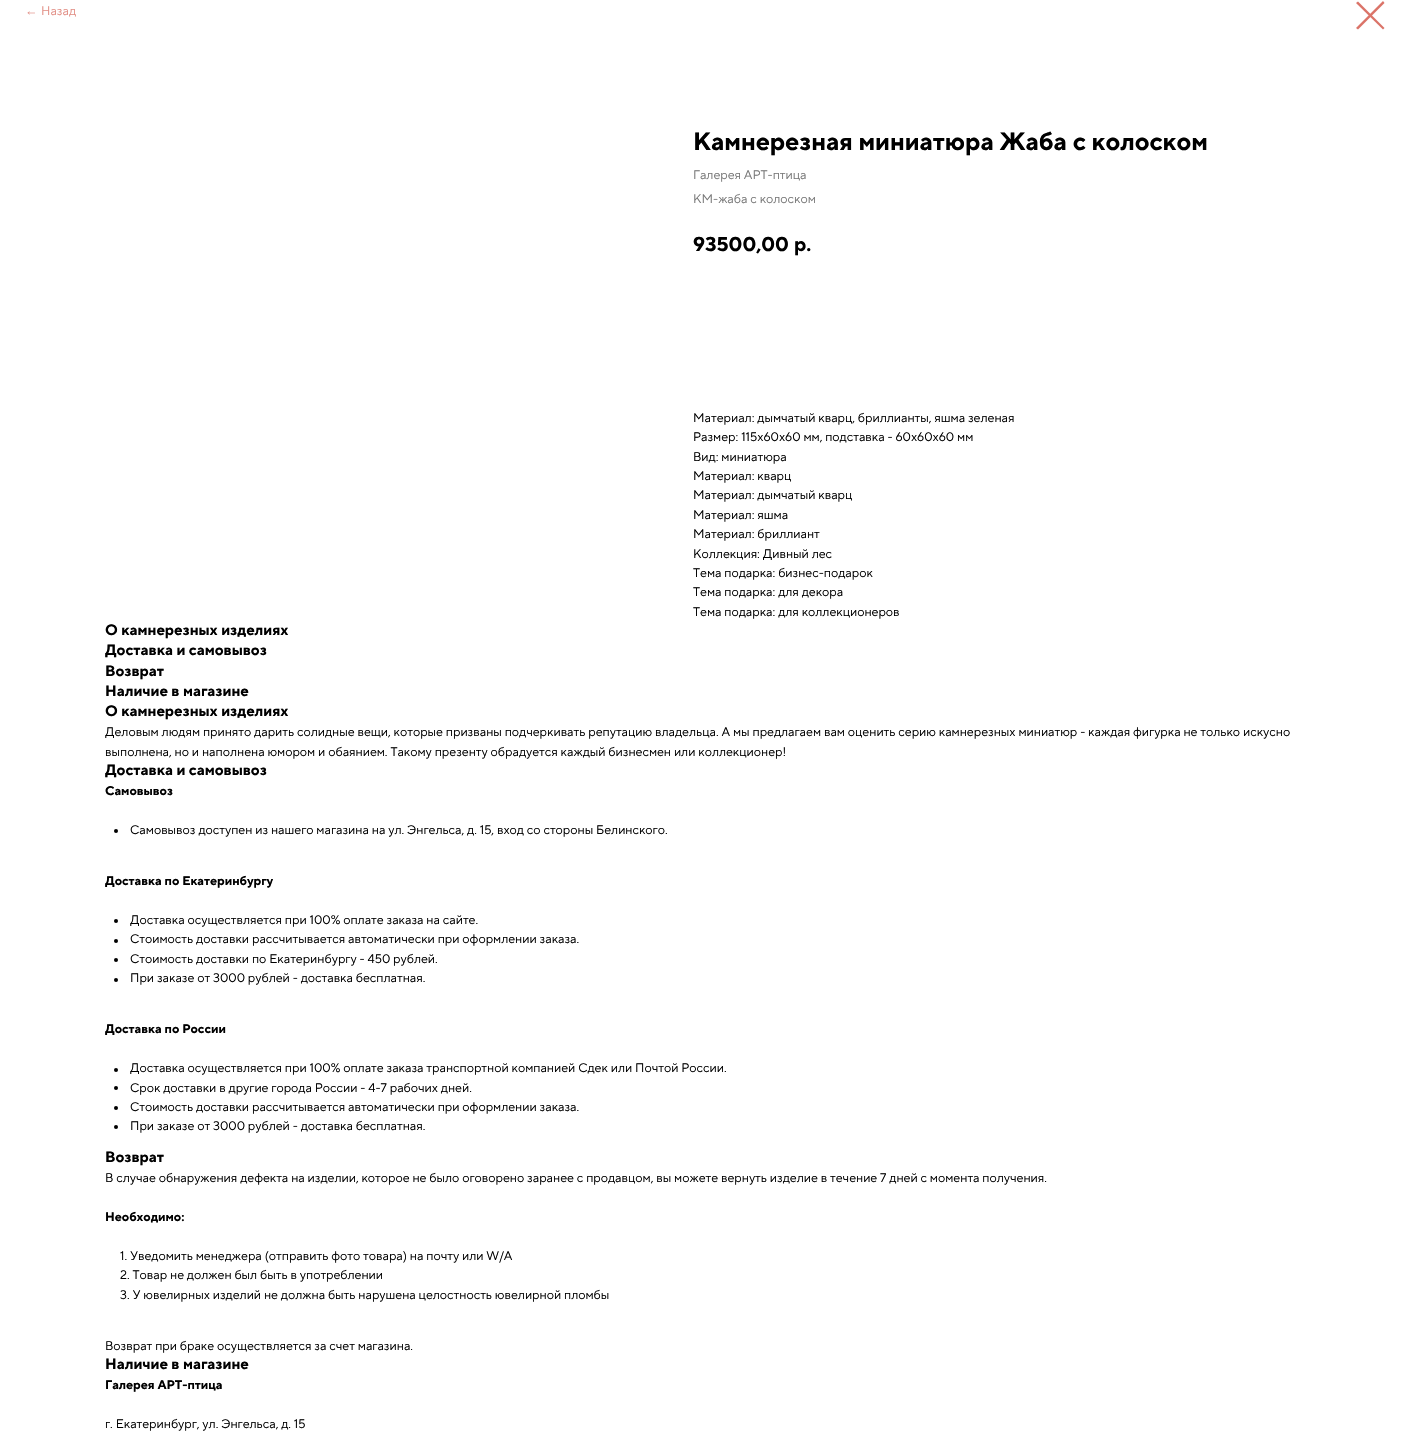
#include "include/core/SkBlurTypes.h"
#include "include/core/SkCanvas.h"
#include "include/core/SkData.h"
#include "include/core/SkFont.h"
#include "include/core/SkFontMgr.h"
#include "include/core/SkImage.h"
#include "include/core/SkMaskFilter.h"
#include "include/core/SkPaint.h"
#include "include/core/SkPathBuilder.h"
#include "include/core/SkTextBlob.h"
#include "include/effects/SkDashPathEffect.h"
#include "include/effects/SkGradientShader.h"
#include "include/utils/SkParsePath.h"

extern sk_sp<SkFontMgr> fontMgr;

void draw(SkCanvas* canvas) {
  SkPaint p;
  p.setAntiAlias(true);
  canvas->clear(SK_ColorWHITE);
  p.setColor(SkColorSetRGB(219, 115, 104));
  canvas->drawPath(SkPathBuilder(SkPathFillType::kEvenOdd).moveTo(1356, 3).lineTo(1358, 1.5f).lineTo(1384.5f, 28).lineTo(1383, 29.5f).close().detach(), p);
  canvas->drawPath(SkPathBuilder(SkPathFillType::kEvenOdd).moveTo(1383, 1).lineTo(1384.5f, 3).lineTo(1358, 29.5f).lineTo(1356, 28).close().detach(), p);
  p.setColor(SK_ColorBLACK);
  canvas->drawCircle(116, 831, 2, p);
  canvas->drawCircle(116, 921, 2, p);
  canvas->drawCircle(116, 941, 2, p);
  canvas->drawCircle(116, 960, 2, p);
  canvas->drawCircle(116, 980, 2, p);
  canvas->drawCircle(116, 1070, 2, p);
  canvas->drawCircle(116, 1088, 2, p);
  canvas->drawCircle(116, 1108, 2, p);
  canvas->drawCircle(116, 1127, 2, p);
  SkFont font1(fontMgr->matchFamilyStyle("Liberation Sans", SkFontStyle::Normal()), 12.5f);
  font1.setSubpixel(true);
  p.setColor(SkColorSetRGB(226, 143, 134));
  canvas->drawString("←", 25, 15, font1, p);
  SkFont font2(fontMgr->matchFamilyStyle("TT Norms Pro", SkFontStyle::Normal()), 12.5f);
  font2.setSubpixel(true);
  canvas->drawString("Назад", 41, 15, font2, p);
  SkFont font3(fontMgr->matchFamilyStyle("TT Norms Pro", SkFontStyle::Bold()), 25);
  font3.setSubpixel(true);
  p.setColor(SK_ColorBLACK);
  canvas->drawString("Камнерезная миниатюра Жаба с колоском", 693, 150, font3, p);
  p.setColor(SkColorSetRGB(119, 119, 119));
  canvas->drawString("Галерея АРТ-птица", 693, 179, font2, p);
  canvas->drawString("КМ-жаба с колоском", 693, 203, font2, p);
  SkFont font4(fontMgr->matchFamilyStyle("TT Norms Pro", SkFontStyle::Bold()), 20);
  font4.setSubpixel(true);
  p.setColor(SK_ColorBLACK);
  canvas->drawString("93500,00", 693, 251, font4, p);
  canvas->drawString("р.", 794, 251, font4, p);
  canvas->drawString("Материал: дымчатый кварц, бриллианты, яшма зеленая", 693, 422, font2, p);
  canvas->drawString("Размер: 115х60х60 мм, подставка - 60х60х60 мм", 693, 441, font2, p);
  canvas->drawString("Вид: миниатюра", 693, 461, font2, p);
  canvas->drawString("Материал: кварц", 693, 480, font2, p);
  canvas->drawString("Материал: дымчатый кварц", 693, 499, font2, p);
  canvas->drawString("Материал: яшма", 693, 519, font2, p);
  canvas->drawString("Материал: бриллиант", 693, 538, font2, p);
  canvas->drawString("Коллекция: Дивный лес", 693, 558, font2, p);
  canvas->drawString("Тема подарка: бизнес-подарок", 693, 577, font2, p);
  canvas->drawString("Тема подарка: для декора", 693, 596, font2, p);
  canvas->drawString("Тема подарка: для коллекционеров", 693, 616, font2, p);
  SkFont font5(fontMgr->matchFamilyStyle("TT Norms Pro", SkFontStyle::Bold()), 15);
  font5.setSubpixel(true);
  canvas->drawString("О камнерезных изделиях", 105, 635, font5, p);
  canvas->drawString("Доставка и самовывоз", 105, 655, font5, p);
  canvas->drawString("Возврат", 105, 676, font5, p);
  canvas->drawString("Наличие в магазине", 105, 696, font5, p);
  canvas->drawString("О камнерезных изделиях", 105, 716, font5, p);
  canvas->drawString("Деловым людям принято дарить солидные вещи, которые призваны подчеркивать репутацию владельца. А мы предлагаем вам оценить серию камнерезных миниатюр - каждая фигурка не только искусно", 105, 736, font2, p);
  canvas->drawString("выполнена, но и наполнена юмором и обаянием. Такому презенту обрадуется каждый бизнесмен или коллекционер!", 105, 756, font2, p);
  canvas->drawString("Доставка и самовывоз", 105, 775, font5, p);
  SkFont font6(fontMgr->matchFamilyStyle("TT Norms Pro", SkFontStyle::Bold()), 12.5f);
  font6.setSubpixel(true);
  canvas->drawString("Самовывоз", 105, 795, font6, p);
  canvas->drawString("Самовывоз доступен из нашего магазина на ул. Энгельса, д. 15, вход со стороны Белинского.", 130, 834, font2, p);
  canvas->drawString("Доставка по Екатеринбургу", 105, 885, font6, p);
  canvas->drawString("Доставка осуществляется при 100% оплате заказа на сайте.", 130, 924, font2, p);
  canvas->drawString("Стоимость доставки рассчитывается автоматически при оформлении заказа.", 130, 943, font2, p);
  canvas->drawString("Стоимость доставки по Екатеринбургу - 450 рублей.", 130, 963, font2, p);
  canvas->drawString("При заказе от 3000 рублей - доставка бесплатная.", 130, 982, font2, p);
  canvas->drawString("Доставка по России", 105, 1033, font6, p);
  canvas->drawString("Доставка осуществляется при 100% оплате заказа транспортной компанией Сдек или Почтой России.", 130, 1072, font2, p);
  canvas->drawString("Срок доставки в другие города России - 4-7 рабочих дней.", 130, 1092, font2, p);
  canvas->drawString("Стоимость доставки рассчитывается автоматически при оформлении заказа.", 130, 1111, font2, p);
  canvas->drawString("При заказе от 3000 рублей - доставка бесплатная.", 130, 1130, font2, p);
  canvas->drawString("Возврат", 105, 1162, font5, p);
  canvas->drawString("В случае обнаружения дефекта на изделии, которое не было оговорено заранее с продавцом, вы можете вернуть изделие в течение 7 дней с момента получения.", 105, 1182, font2, p);
  canvas->drawString("Необходимо:", 105, 1221, font6, p);
  canvas->drawString("1. Уведомить менеджера (отправить фото товара) на почту или W/А", 120, 1260, font2, p);
  canvas->drawString("2. Товар не должен был быть в употреблении", 120, 1279, font2, p);
  canvas->drawString("3. У ювелирных изделий не должна быть нарушена целостность ювелирной пломбы", 120, 1299, font2, p);
  canvas->drawString("Возврат при браке осуществляется за счет магазина.", 105, 1350, font2, p);
  canvas->drawString("Наличие в магазине", 105, 1369, font5, p);
  canvas->drawString("Галерея АРТ-птица", 105, 1389, font6, p);
  canvas->drawString("г. Екатеринбург, ул. Энгельса, д. 15", 105, 1428, font2, p);
}
